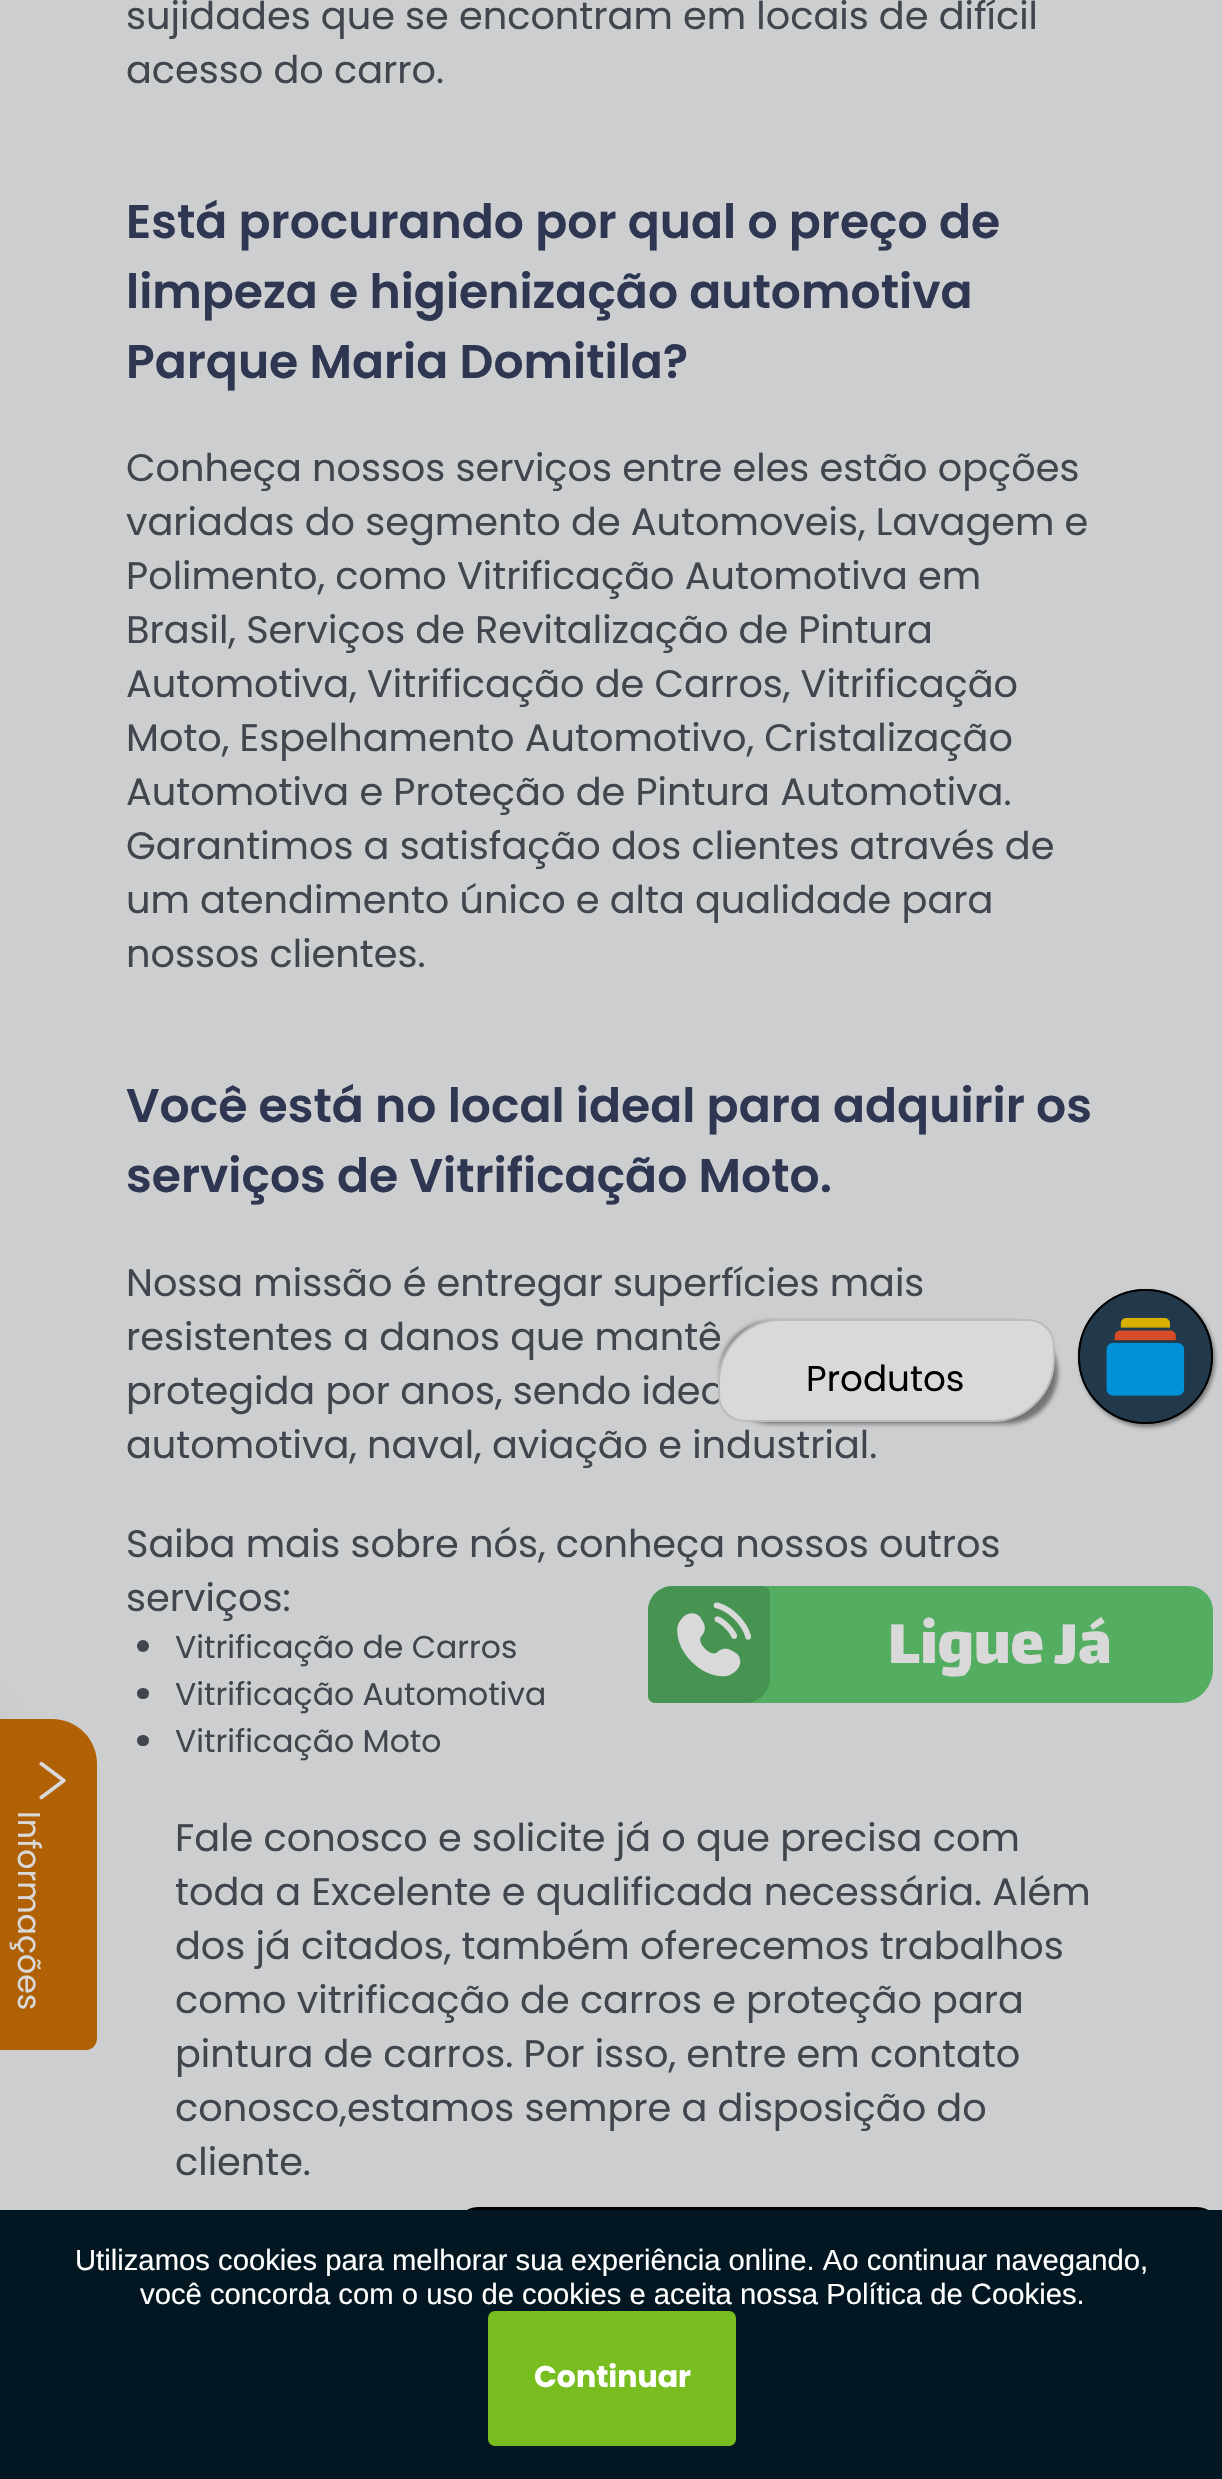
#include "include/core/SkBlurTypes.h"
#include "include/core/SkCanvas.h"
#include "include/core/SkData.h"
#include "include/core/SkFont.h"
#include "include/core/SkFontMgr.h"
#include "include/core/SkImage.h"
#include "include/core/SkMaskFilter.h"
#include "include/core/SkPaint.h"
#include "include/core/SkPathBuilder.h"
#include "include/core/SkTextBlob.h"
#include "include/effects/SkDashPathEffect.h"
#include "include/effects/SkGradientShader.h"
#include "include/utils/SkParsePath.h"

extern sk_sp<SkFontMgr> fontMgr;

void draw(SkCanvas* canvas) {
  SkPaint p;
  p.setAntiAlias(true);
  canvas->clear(SkColorSetRGB(204, 206, 208));
  p.setColor(SkColorSetRGB(65, 69, 78));
  canvas->drawCircle(143, 1646, 6, p);
  canvas->drawRoundRect(SkRect::MakeLTRB(137, 1688, 149, 1699), 5.5f, 5.5f, p);
  canvas->drawRoundRect(SkRect::MakeLTRB(137, 1735, 149, 1746), 5.5f, 5.5f, p);
  p.setColor(SkColorSetRGB(116, 116, 116));
  p.setMaskFilter(SkMaskFilter::MakeBlur(kNormal_SkBlurStyle, 2));
  canvas->drawRoundRect(SkRect::MakeLTRB(1080, 1292, 1215, 1427), 67.5f, 67.5f, p);
  p.setMaskFilter(nullptr);
  p.setColor(SkColorSetRGB(34, 57, 76));
  canvas->drawCircle(1145.5f, 1356.5f, 67.5f, p);
  canvas->drawImageRect(SkImages::DeferredFromEncodedData(SkData::MakeFromFileName("images/1.png")), SkRect::MakeLTRB(1106, 1317, 1185, 1396), SkSamplingOptions());
  p.setStyle(SkPaint::kStroke_Style);
  p.setStrokeWidth(2);
  p.setColor(SK_ColorBLACK);
  canvas->drawCircle(1145.5f, 1356.5f, 66.5f, p);
  p.setStyle(SkPaint::kFill_Style);
  p.setColor(SkColorSetRGB(116, 116, 116));
  p.setMaskFilter(SkMaskFilter::MakeBlur(kNormal_SkBlurStyle, 2));
  canvas->drawRoundRect(SkRect::MakeLTRB(720, 1321, 1058, 1424), 63, 63, p);
  p.setMaskFilter(nullptr);
  p.setColor(SkColorSetRGB(84, 174, 97));
  canvas->drawPath(SkPathBuilder().moveTo(673, 1586).lineTo(1188, 1586).cubicTo(1202, 1586, 1213, 1597, 1213, 1611).lineTo(1213, 1669).cubicTo(1213, 1688, 1198, 1703, 1179, 1703).lineTo(673, 1703).cubicTo(659, 1703, 648, 1692, 648, 1678).lineTo(648, 1611).cubicTo(648, 1597, 659, 1586, 673, 1586).close().detach(), p);
  p.setColor(SkColorSetRGB(71, 148, 82));
  canvas->drawPath(SkPathBuilder().moveTo(673, 1586).lineTo(763, 1586).cubicTo(767, 1586, 770, 1589, 770, 1593).lineTo(770, 1678).cubicTo(770, 1692, 759, 1703, 745, 1703).lineTo(655, 1703).cubicTo(651, 1703, 648, 1700, 648, 1696).lineTo(648, 1611).cubicTo(648, 1597, 659, 1586, 673, 1586).close().detach(), p);
  canvas->drawImageRect(SkImages::DeferredFromEncodedData(SkData::MakeFromFileName("images/2.png")), SkRect::MakeLTRB(677, 1602, 751, 1677), SkSamplingOptions());
  p.setColor(SkColorSetRGB(113, 113, 113));
  p.setMaskFilter(SkMaskFilter::MakeBlur(kNormal_SkBlurStyle, 27));
  canvas->drawRect(SkRect::MakeLTRB(-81, 1730, -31, 2009), p);
  p.setMaskFilter(nullptr);
  p.setColor(SkColorSetRGB(176, 97, 6));
  canvas->drawPath(SkPathBuilder().moveTo(97, 1764).lineTo(97, 2038).cubicTo(97, 2045, 92, 2050, 86, 2050).lineTo(-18, 2050).lineTo(-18, 1719).lineTo(52, 1719).cubicTo(77, 1719, 97, 1739, 97, 1764).close().detach(), p);
  canvas->drawImageRect(SkImages::DeferredFromEncodedData(SkData::MakeFromFileName("images/3.png")), SkRect::MakeLTRB(39, 1761, 66, 1800), SkSamplingOptions());
  p.setColor(SK_ColorBLACK);
  canvas->drawRoundRect(SkRect::MakeLTRB(455, 2207, 1220, 2300), 23, 23, p);
  p.setColor(SkColorSetRGB(2, 23, 34));
  canvas->drawRect(SkRect::MakeLTRB(0, 2210, 1222, 2479), p);
  p.setColor(SkColorSetRGB(120, 190, 32));
  canvas->drawRoundRect(SkRect::MakeLTRB(488, 2311, 736, 2446), 7, 7, p);
  SkFont font1(fontMgr->matchFamilyStyle("Poppins", SkFontStyle::Normal()), 38.25f);
  font1.setSubpixel(true);
  p.setColor(SkColorSetRGB(65, 69, 78));
  canvas->drawString("sujidades que se encontram em locais de difícil", 126, 29, font1, p);
  canvas->drawString("acesso do carro.", 126, 83, font1, p);
  SkFont font2(fontMgr->matchFamilyStyle("Poppins", SkFontStyle(600, SkFontStyle::kNormal_Width, SkFontStyle::kUpright_Slant)), 47.25f);
  font2.setSubpixel(true);
  p.setColor(SkColorSetRGB(46, 54, 81));
  canvas->drawString("Está procurando por qual o preço de", 126, 238, font2, p);
  canvas->drawString("limpeza e higienização automotiva", 126, 308, font2, p);
  canvas->drawString("Parque Maria Domitila?", 126, 378, font2, p);
  p.setColor(SkColorSetRGB(65, 69, 78));
  canvas->drawString("Conheça nossos serviços entre eles estão opções", 126, 481, font1, p);
  canvas->drawString("variadas do segmento de Automoveis, Lavagem e", 126, 535, font1, p);
  canvas->drawString("Polimento, como Vitrificação Automotiva em", 126, 589, font1, p);
  canvas->drawString("Brasil, Serviços de Revitalização de Pintura", 126, 643, font1, p);
  canvas->drawString("Automotiva, Vitrificação de Carros, Vitrificação", 126, 697, font1, p);
  canvas->drawString("Moto, Espelhamento Automotivo, Cristalização", 126, 751, font1, p);
  canvas->drawString("Automotiva e Proteção de Pintura Automotiva.", 126, 805, font1, p);
  canvas->drawString("Garantimos a satisfação dos clientes através de", 126, 859, font1, p);
  canvas->drawString("um atendimento único e alta qualidade para", 126, 913, font1, p);
  canvas->drawString("nossos clientes.", 126, 967, font1, p);
  p.setColor(SkColorSetRGB(46, 54, 81));
  canvas->drawString("Você está no local ideal para adquirir os", 126, 1122, font2, p);
  canvas->drawString("serviços de Vitrificação Moto.", 126, 1192, font2, p);
  p.setColor(SkColorSetRGB(65, 69, 78));
  canvas->drawString("Nossa missão é entregar superfícies mais", 126, 1296, font1, p);
  canvas->drawString("resistentes a danos que mantê", 126, 1350, font1, p);
  canvas->drawString("protegida por anos, sendo idea", 126, 1404, font1, p);
  canvas->drawString("automotiva, naval, aviação e industrial.", 126, 1458, font1, p);
  canvas->drawString("Saiba mais sobre nós, conheça nossos outros", 126, 1557, font1, p);
  canvas->drawString("serviços:", 126, 1611, font1, p);
  SkFont font3(fontMgr->matchFamilyStyle("Poppins", SkFontStyle::Normal()), 31.5f);
  font3.setSubpixel(true);
  canvas->drawString("Vitrificação de Carros", 175, 1658, font3, p);
  canvas->drawString("Vitrificação Automotiva", 175, 1705, font3, p);
  canvas->drawString("Vitrificação Moto", 175, 1752, font3, p);
  canvas->drawString("Fale conosco e solicite já o que precisa com", 175, 1851, font1, p);
  canvas->drawString("toda a Excelente e qualificada necessária. Além", 175, 1905, font1, p);
  canvas->drawString("dos já citados, também oferecemos trabalhos", 175, 1959, font1, p);
  canvas->drawString("como vitrificação de carros e proteção para", 175, 2013, font1, p);
  canvas->drawString("pintura de carros. Por isso, entre em contato", 175, 2067, font1, p);
  canvas->drawString("conosco,estamos sempre a disposição do", 175, 2121, font1, p);
  canvas->drawString("cliente.", 175, 2175, font1, p);
  p.setColor(SkColorSetRGB(217, 217, 217));
  canvas->drawPath(SkPathBuilder().moveTo(781, 1320).lineTo(1028, 1320).cubicTo(1042.5f, 1320, 1054, 1331.5f, 1054, 1346).lineTo(1054, 1359).cubicTo(1054, 1393, 1026, 1421, 992, 1421).lineTo(745, 1421).cubicTo(730.5f, 1421, 719, 1409.5f, 719, 1395).lineTo(719, 1382).cubicTo(719, 1348, 747, 1320, 781, 1320).close().detach(), p);
  p.setStyle(SkPaint::kStroke_Style);
  p.setColor(SkColorSetRGB(188, 187, 187));
  canvas->drawPath(SkPathBuilder().moveTo(781, 1320).lineTo(1028, 1320).cubicTo(1042.5f, 1320, 1054, 1331.5f, 1054, 1346).lineTo(1054, 1359).cubicTo(1054, 1393, 1026, 1421, 992, 1421).lineTo(745, 1421).cubicTo(730.5f, 1421, 719, 1409.5f, 719, 1395).lineTo(719, 1382).cubicTo(719, 1348, 747, 1320, 781, 1320).close().detach(), p);
  SkFont font4(fontMgr->matchFamilyStyle("Poppins", SkFontStyle::Normal()), 35.75f);
  font4.setSubpixel(true);
  p.setStyle(SkPaint::kFill_Style);
  p.setColor(SK_ColorBLACK);
  canvas->drawString("Produtos", 806, 1391, font4, p);
  SkFont font5(fontMgr->matchFamilyStyle("Lalezar", SkFontStyle::Normal()), 67.5f);
  font5.setSubpixel(true);
  p.setColor(SkColorSetRGB(217, 217, 217));
  canvas->drawString("Ligue Já", 888, 1663, font5, p);
  canvas->save();
  canvas->rotate(90, 18, 1811);
  canvas->drawString("Informações", 18, 1811, font3, p);
  canvas->restore();
  SkFont font6(fontMgr->matchFamilyStyle("Liberation Sans", SkFontStyle::Normal()), 29.25f);
  font6.setSubpixel(true);
  p.setColor(SK_ColorWHITE);
  canvas->drawString("Utilizamos cookies para melhorar sua experiência online. Ao continuar navegando,", 75, 2270, font6, p);
  canvas->drawString("você concorda com o uso de cookies e aceita nossa Política de Cookies.", 140, 2304, font6, p);
  SkFont font7(fontMgr->matchFamilyStyle("Poppins", SkFontStyle::Bold()), 30);
  font7.setSubpixel(true);
  canvas->drawString("Continuar", 534, 2387, font7, p);
}
